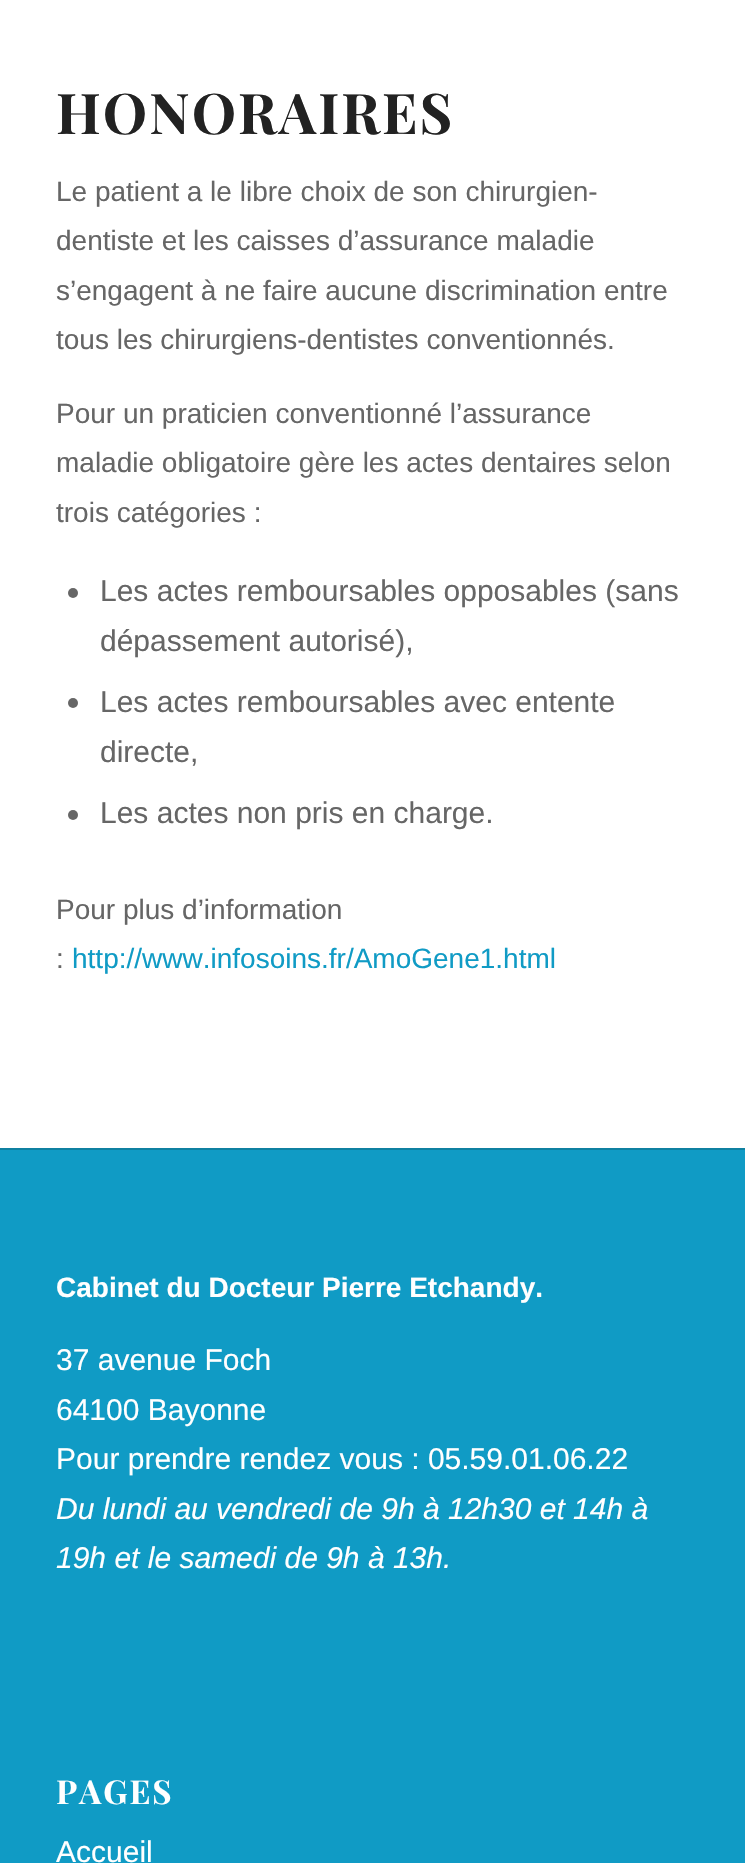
#include "include/core/SkBlurTypes.h"
#include "include/core/SkCanvas.h"
#include "include/core/SkData.h"
#include "include/core/SkFont.h"
#include "include/core/SkFontMgr.h"
#include "include/core/SkImage.h"
#include "include/core/SkMaskFilter.h"
#include "include/core/SkPaint.h"
#include "include/core/SkPathBuilder.h"
#include "include/core/SkTextBlob.h"
#include "include/effects/SkDashPathEffect.h"
#include "include/effects/SkGradientShader.h"
#include "include/utils/SkParsePath.h"

extern sk_sp<SkFontMgr> fontMgr;

void draw(SkCanvas* canvas) {
  SkPaint p;
  p.setAntiAlias(true);
  auto spacedText = [&](const char* s, float x, float y, const SkFont& font, const SkPaint& ink, float letter, float word) {
    std::vector<SkGlyphID> glyphs(font.countText(s, strlen(s), SkTextEncoding::kUTF8));
    std::vector<float> xs(glyphs.size());
    font.textToGlyphs(s, strlen(s), SkTextEncoding::kUTF8, glyphs);
    font.getXPos(glyphs, xs, x);
    float extra = 0;
    for (size_t i = 0; i < glyphs.size(); i++) {
      xs[i] += extra;
      extra += letter + word * (glyphs[i] == font.unicharToGlyph(' '));
    }
    canvas->drawTextBlob(SkTextBlob::MakeFromPosHGlyphs(glyphs, xs, y, font), 0, 0, ink);
  };
  canvas->clear(SK_ColorWHITE);
  p.setColor(SkColorSetRGB(102, 102, 102));
  canvas->drawCircle(73, 593, 5, p);
  canvas->drawCircle(73, 703, 5, p);
  canvas->drawCircle(73, 815, 5, p);
  p.setColor(SkColorSetRGB(16, 155, 197));
  canvas->drawRect(SkRect::MakeLTRB(0, 1150, 745, 1863), p);
  p.setColor(SkColorSetRGB(15, 129, 161));
  canvas->drawRect(SkRect::MakeLTRB(0, 1148, 745, 1150), p);
  SkFont font1(fontMgr->matchFamilyStyle("Playfair Display", SkFontStyle::Bold()), 56);
  font1.setSubpixel(true);
  p.setColor(SkColorSetRGB(34, 34, 34));
  spacedText("HONORAIRES", 56, 134, font1, p, 2, 0);
  SkFont font2(fontMgr->matchFamilyStyle("Liberation Sans", SkFontStyle::Normal()), 28);
  font2.setSubpixel(true);
  p.setColor(SkColorSetRGB(102, 102, 102));
  canvas->drawString("Le patient a le libre choix de son chirurgien-", 56, 201, font2, p);
  canvas->drawString("dentiste et les caisses d’assurance maladie", 56, 250, font2, p);
  canvas->drawString("s’engagent à ne faire aucune discrimination entre", 56, 300, font2, p);
  canvas->drawString("tous les chirurgiens-dentistes conventionnés.", 56, 349, font2, p);
  canvas->drawString("Pour un praticien conventionné l’assurance", 56, 423, font2, p);
  canvas->drawString("maladie obligatoire gère les actes dentaires selon", 56, 472, font2, p);
  canvas->drawString("trois catégories :", 56, 522, font2, p);
  SkFont font3(fontMgr->matchFamilyStyle("Liberation Sans", SkFontStyle::Normal()), 30);
  font3.setSubpixel(true);
  canvas->drawString("Les actes remboursables opposables (sans", 100, 601, font3, p);
  canvas->drawString("dépassement autorisé),", 100, 651, font3, p);
  canvas->drawString("Les actes remboursables avec entente", 100, 712, font3, p);
  canvas->drawString("directe,", 100, 762, font3, p);
  canvas->drawString("Les actes non pris en charge.", 100, 823, font3, p);
  canvas->drawString("Pour plus d’information", 56, 919, font2, p);
  canvas->drawString(":", 56, 968, font2, p);
  p.setColor(SkColorSetRGB(16, 155, 197));
  canvas->drawString("http://www.infosoins.fr/AmoGene1.html", 72, 968, font2, p);
  SkFont font4(fontMgr->matchFamilyStyle("Liberation Sans", SkFontStyle::Bold()), 28);
  font4.setSubpixel(true);
  p.setColor(SK_ColorWHITE);
  canvas->drawString("Cabinet du Docteur Pierre Etchandy.", 56, 1297, font4, p);
  canvas->drawString("37 avenue Foch", 56, 1370, font3, p);
  canvas->drawString("64100 Bayonne", 56, 1420, font3, p);
  canvas->drawString("Pour prendre rendez vous : 05.59.01.06.22", 56, 1469, font3, p);
  SkFont font5(fontMgr->matchFamilyStyle("Liberation Sans", SkFontStyle::Italic()), 30);
  font5.setSubpixel(true);
  canvas->drawString("Du lundi au vendredi de 9h à 12h30 et 14h à", 56, 1519, font5, p);
  canvas->drawString("19h et le samedi de 9h à 13h.", 56, 1568, font5, p);
  SkFont font6(fontMgr->matchFamilyStyle("Playfair Display", SkFontStyle::Bold()), 33);
  font6.setSubpixel(true);
  spacedText("PAGES", 56, 1804, font6, p, 2, 0);
  canvas->drawString("Accueil", 56, 1862, font3, p);
}
